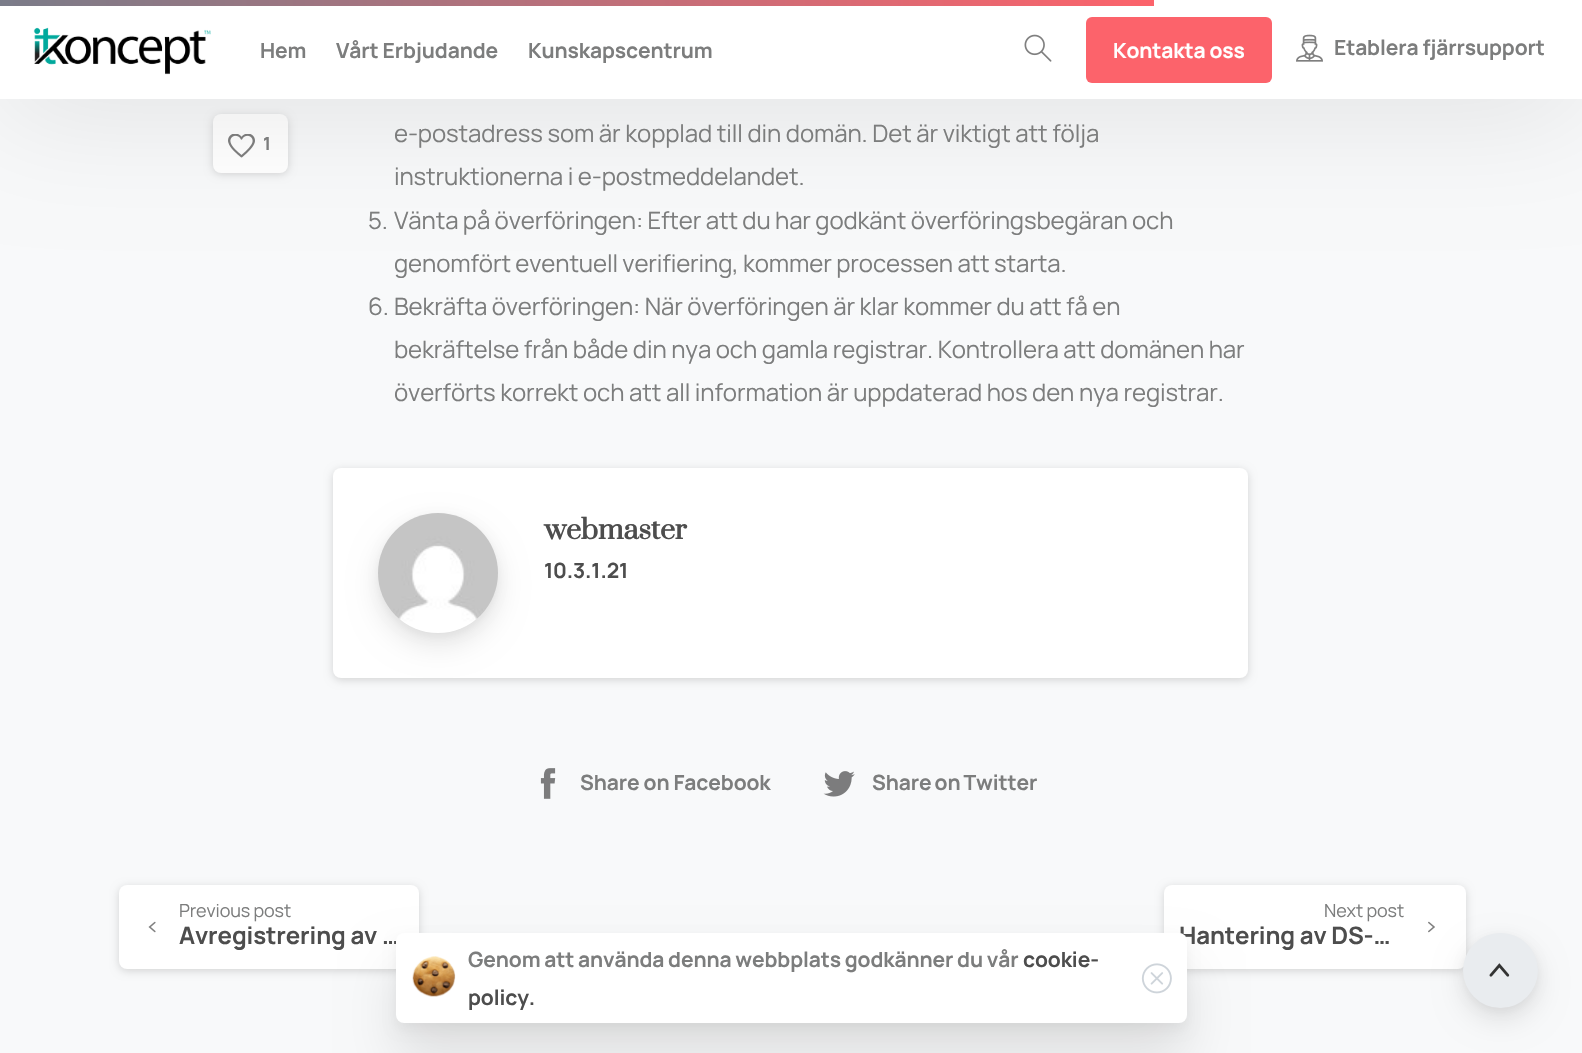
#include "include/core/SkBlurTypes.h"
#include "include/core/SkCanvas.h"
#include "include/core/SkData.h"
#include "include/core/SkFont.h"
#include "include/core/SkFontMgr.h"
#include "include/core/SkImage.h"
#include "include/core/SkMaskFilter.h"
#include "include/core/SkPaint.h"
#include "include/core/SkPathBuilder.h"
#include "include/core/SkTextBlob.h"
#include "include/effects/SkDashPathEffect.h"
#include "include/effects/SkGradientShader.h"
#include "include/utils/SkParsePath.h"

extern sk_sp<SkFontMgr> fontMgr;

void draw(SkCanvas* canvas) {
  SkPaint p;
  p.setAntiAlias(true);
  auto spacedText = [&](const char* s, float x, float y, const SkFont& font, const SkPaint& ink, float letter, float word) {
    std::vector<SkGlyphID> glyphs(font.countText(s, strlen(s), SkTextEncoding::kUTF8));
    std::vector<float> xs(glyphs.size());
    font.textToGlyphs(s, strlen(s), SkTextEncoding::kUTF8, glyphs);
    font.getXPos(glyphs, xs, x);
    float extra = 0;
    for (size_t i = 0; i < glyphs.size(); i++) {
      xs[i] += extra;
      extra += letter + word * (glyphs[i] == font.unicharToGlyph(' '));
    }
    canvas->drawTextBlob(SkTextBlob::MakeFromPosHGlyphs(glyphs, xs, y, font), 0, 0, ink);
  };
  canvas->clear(SkColorSetRGB(248, 249, 250));
  p.setColor(SkColorSetARGB(38, 0, 0, 0));
  p.setMaskFilter(SkMaskFilter::MakeBlur(kNormal_SkBlurStyle, 4));
  canvas->drawRoundRect(SkRect::MakeLTRB(213, 116, 288, 174), 8, 8, p);
  p.setMaskFilter(nullptr);
  p.setColor(SK_ColorWHITE);
  canvas->drawRoundRect(SkRect::MakeLTRB(213, 114, 288, 173), 8, 8, p);
  canvas->drawImageRect(SkImages::DeferredFromEncodedData(SkData::MakeFromFileName("images/4.png")), SkRect::MakeLTRB(228, 134, 255, 158), SkSamplingOptions());
  p.setColor(SkColorSetARGB(26, 0, 0, 0));
  p.setMaskFilter(SkMaskFilter::MakeBlur(kNormal_SkBlurStyle, 60));
  canvas->drawRect(SkRect::MakeLTRB(0, 8, 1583, 107), p);
  p.setMaskFilter(nullptr);
  p.setColor(SK_ColorWHITE);
  canvas->drawRect(SkRect::MakeLTRB(0, 0, 1582, 99), p);
  {
    const SkColor colors[] = {SkColorSetRGB(74, 133, 148), SkColorSetRGB(252, 99, 107)};
    const float stops[] = {0, 1};
    const SkPoint ends[] = {{-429, 3}, {1154, 3}};
    p.setShader(SkGradientShader::MakeLinear(ends, colors, stops, 2, SkTileMode::kClamp));
    p.setAlpha(255);
  }
  canvas->drawRect(SkRect::MakeLTRB(0, 0, 1154, 6), p);
  canvas->drawImageRect(SkImages::DeferredFromEncodedData(SkData::MakeFromFileName("images/1.png")), SkRect::MakeLTRB(33, 27, 211, 75), SkSamplingOptions());
  canvas->drawImageRect(SkImages::DeferredFromEncodedData(SkData::MakeFromFileName("images/2.png")), SkRect::MakeLTRB(1024, 34, 1052, 62), SkSamplingOptions());
  p.setShader(nullptr);
  p.setColor(SkColorSetRGB(252, 99, 107));
  canvas->drawRoundRect(SkRect::MakeLTRB(1086, 17, 1272, 83), 6, 6, p);
  canvas->drawImageRect(SkImages::DeferredFromEncodedData(SkData::MakeFromFileName("images/3.png")), SkRect::MakeLTRB(1296, 34, 1323, 62), SkSamplingOptions());
  p.setColor(SkColorSetARGB(38, 0, 0, 0));
  p.setMaskFilter(SkMaskFilter::MakeBlur(kNormal_SkBlurStyle, 4));
  canvas->drawRoundRect(SkRect::MakeLTRB(333, 470, 1248, 680), 8, 8, p);
  p.setMaskFilter(nullptr);
  p.setColor(SK_ColorWHITE);
  canvas->drawRoundRect(SkRect::MakeLTRB(333, 468, 1248, 678), 8, 8, p);
  p.setColor(SkColorSetARGB(26, 0, 0, 0));
  p.setMaskFilter(SkMaskFilter::MakeBlur(kNormal_SkBlurStyle, 14.5f));
  canvas->drawRoundRect(SkRect::MakeLTRB(378, 525, 498, 645), 60, 60, p);
  p.setMaskFilter(nullptr);
  p.setColor(SkColorSetARGB(13, 0, 0, 0));
  p.setMaskFilter(SkMaskFilter::MakeBlur(kNormal_SkBlurStyle, 4.5f));
  canvas->drawRoundRect(SkRect::MakeLTRB(378, 516, 498, 636), 60, 60, p);
  p.setMaskFilter(nullptr);
  canvas->drawImageRect(SkImages::DeferredFromEncodedData(SkData::MakeFromFileName("images/5.png")), SkRect::MakeLTRB(378, 513, 498, 633), SkSamplingOptions());
  canvas->drawImageRect(SkImages::DeferredFromEncodedData(SkData::MakeFromFileName("images/6.png")), SkRect::MakeLTRB(540, 768, 556, 799), SkSamplingOptions());
  canvas->drawImageRect(SkImages::DeferredFromEncodedData(SkData::MakeFromFileName("images/7.png")), SkRect::MakeLTRB(823, 771, 855, 797), SkSamplingOptions());
  p.setColor(SkColorSetARGB(38, 0, 0, 0));
  p.setMaskFilter(SkMaskFilter::MakeBlur(kNormal_SkBlurStyle, 4));
  canvas->drawRoundRect(SkRect::MakeLTRB(119, 887, 419, 971), 8, 8, p);
  p.setMaskFilter(nullptr);
  p.setColor(SK_ColorWHITE);
  canvas->drawRoundRect(SkRect::MakeLTRB(119, 885, 419, 969), 8, 8, p);
  canvas->drawImageRect(SkImages::DeferredFromEncodedData(SkData::MakeFromFileName("images/8.png")), SkRect::MakeLTRB(148, 921, 156, 933), SkSamplingOptions());
  p.setColor(SkColorSetARGB(38, 0, 0, 0));
  p.setMaskFilter(SkMaskFilter::MakeBlur(kNormal_SkBlurStyle, 4));
  canvas->drawRoundRect(SkRect::MakeLTRB(1164, 887, 1466, 971), 8, 8, p);
  p.setMaskFilter(nullptr);
  p.setColor(SK_ColorWHITE);
  canvas->drawRoundRect(SkRect::MakeLTRB(1164, 885, 1466, 969), 8, 8, p);
  canvas->drawImageRect(SkImages::DeferredFromEncodedData(SkData::MakeFromFileName("images/9.png")), SkRect::MakeLTRB(1428, 921, 1435, 933), SkSamplingOptions());
  p.setColor(SkColorSetARGB(26, 0, 0, 0));
  p.setMaskFilter(SkMaskFilter::MakeBlur(kNormal_SkBlurStyle, 26.5f));
  canvas->drawRoundRect(SkRect::MakeLTRB(396, 969, 1187, 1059), 8, 8, p);
  p.setMaskFilter(nullptr);
  p.setColor(SkColorSetARGB(13, 0, 0, 0));
  p.setMaskFilter(SkMaskFilter::MakeBlur(kNormal_SkBlurStyle, 6));
  canvas->drawRoundRect(SkRect::MakeLTRB(396, 939, 1187, 1029), 8, 8, p);
  p.setMaskFilter(nullptr);
  p.setColor(SkColorSetARGB(26, 0, 0, 0));
  p.setMaskFilter(SkMaskFilter::MakeBlur(kNormal_SkBlurStyle, 14.5f));
  canvas->drawRoundRect(SkRect::MakeLTRB(1463, 945, 1538, 1020), 37.5f, 37.5f, p);
  p.setMaskFilter(nullptr);
  p.setColor(SkColorSetARGB(13, 0, 0, 0));
  p.setMaskFilter(SkMaskFilter::MakeBlur(kNormal_SkBlurStyle, 4.5f));
  canvas->drawRoundRect(SkRect::MakeLTRB(1463, 936, 1538, 1011), 37.5f, 37.5f, p);
  p.setMaskFilter(nullptr);
  p.setColor(SkColorSetRGB(233, 236, 239));
  canvas->drawCircle(1500.5f, 970.5f, 37.5f, p);
  canvas->drawImageRect(SkImages::DeferredFromEncodedData(SkData::MakeFromFileName("images/12.png")), SkRect::MakeLTRB(1489, 963, 1510, 977), SkSamplingOptions());
  SkFont font1(fontMgr->matchFamilyStyle("Manrope", SkFontStyle::Bold()), 21);
  font1.setSubpixel(true);
  p.setColor(SkColorSetRGB(124, 125, 125));
  spacedText("Hem", 260, 58, font1, p, -0.12f, 0);
  spacedText("Vårt Erbjudande", 336, 58, font1, p, -0.12f, 0);
  spacedText("Kunskapscentrum", 528, 58, font1, p, -0.12f, 0);
  p.setColor(SK_ColorWHITE);
  spacedText("Kontakta oss", 1113, 58, font1, p, -0.12f, 0);
  p.setColor(SkColorSetRGB(124, 125, 125));
  spacedText("Etablera fjärrsupport", 1334, 55, font1, p, -0.12f, 0);
  SkFont font2(fontMgr->matchFamilyStyle("Manrope", SkFontStyle::Bold()), 18);
  font2.setSubpixel(true);
  spacedText("1", 263, 150, font2, p, -0.12f, 0);
  SkFont font3(fontMgr->matchFamilyStyle("Manrope", SkFontStyle::Normal()), 24);
  font3.setSubpixel(true);
  spacedText("e-postadress som är kopplad till din domän. Det är viktigt att följa", 394, 142, font3, p, -0.12f, 0);
  spacedText("instruktionerna i e-postmeddelandet.", 394, 185, font3, p, -0.12f, 0);
  spacedText("5.", 368, 229, font3, p, -0.12f, 0);
  spacedText("Vänta på överföringen: Efter att du har godkänt överföringsbegäran och", 394, 229, font3, p, -0.12f, -0.25f);
  spacedText("genomfört eventuell verifiering, kommer processen att starta.", 394, 272, font3, p, -0.12f, -0.25f);
  spacedText("6.", 368, 315, font3, p, -0.12f, 0);
  spacedText("Bekräfta överföringen: När överföringen är klar kommer du att få en", 394, 315, font3, p, -0.12f, -0.1f);
  spacedText("bekräftelse från både din nya och gamla registrar. Kontrollera att domänen har", 394, 358, font3, p, -0.12f, 0);
  spacedText("överförts korrekt och att all information är uppdaterad hos den nya registrar.", 394, 401, font3, p, -0.12f, 0);
  SkFont font4(fontMgr->matchFamilyStyle("Prata", SkFontStyle::Bold()), 27);
  font4.setSubpixel(true);
  p.setColor(SkColorSetRGB(77, 77, 77));
  spacedText("webmaster", 544, 539, font4, p, -0.25f, 0);
  spacedText("10.3.1.21", 544, 578, font1, p, -0.12f, 0);
  p.setColor(SkColorSetRGB(124, 125, 125));
  spacedText("Share on Facebook", 580, 790, font1, p, -0.12f, 0);
  spacedText("Share on Twitter", 872, 790, font1, p, -0.12f, -1);
  SkFont font5(fontMgr->matchFamilyStyle("Manrope", SkFontStyle::Normal()), 18);
  font5.setSubpixel(true);
  spacedText("Previous post", 179, 917, font5, p, -0.12f, 0);
  SkFont font6(fontMgr->matchFamilyStyle("Manrope", SkFontStyle::Bold()), 24);
  font6.setSubpixel(true);
  p.setColor(SkColorSetRGB(77, 77, 77));
  spacedText("Avregistrering av …", 179, 944, font6, p, -0.12f, 0);
  p.setColor(SkColorSetRGB(124, 125, 125));
  spacedText("Next post", 1324, 917, font5, p, -0.12f, 0);
  p.setColor(SkColorSetRGB(77, 77, 77));
  spacedText("Hantering av DS-…", 1179, 944, font6, p, -0.12f, 0);
  p.setColor(SK_ColorWHITE);
  canvas->drawRoundRect(SkRect::MakeLTRB(396, 933, 1187, 1023), 8, 8, p);
  canvas->drawImageRect(SkImages::DeferredFromEncodedData(SkData::MakeFromFileName("images/10.png")), SkRect::MakeLTRB(412, 956, 456, 997), SkSamplingOptions());
  p.setColor(SkColorSetRGB(124, 125, 125));
  spacedText("Genom att använda denna webbplats godkänner du vår", 468, 967, font1, p, -0.12f, -0.25f);
  p.setColor(SkColorSetRGB(77, 77, 77));
  spacedText("cookie-", 1023, 967, font1, p, -0.12f, 0);
  spacedText("policy.", 468, 1005, font1, p, -0.12f, 0);
  canvas->drawImageRect(SkImages::DeferredFromEncodedData(SkData::MakeFromFileName("images/11.png")), SkRect::MakeLTRB(1141, 963, 1172, 994), SkSamplingOptions());
}
